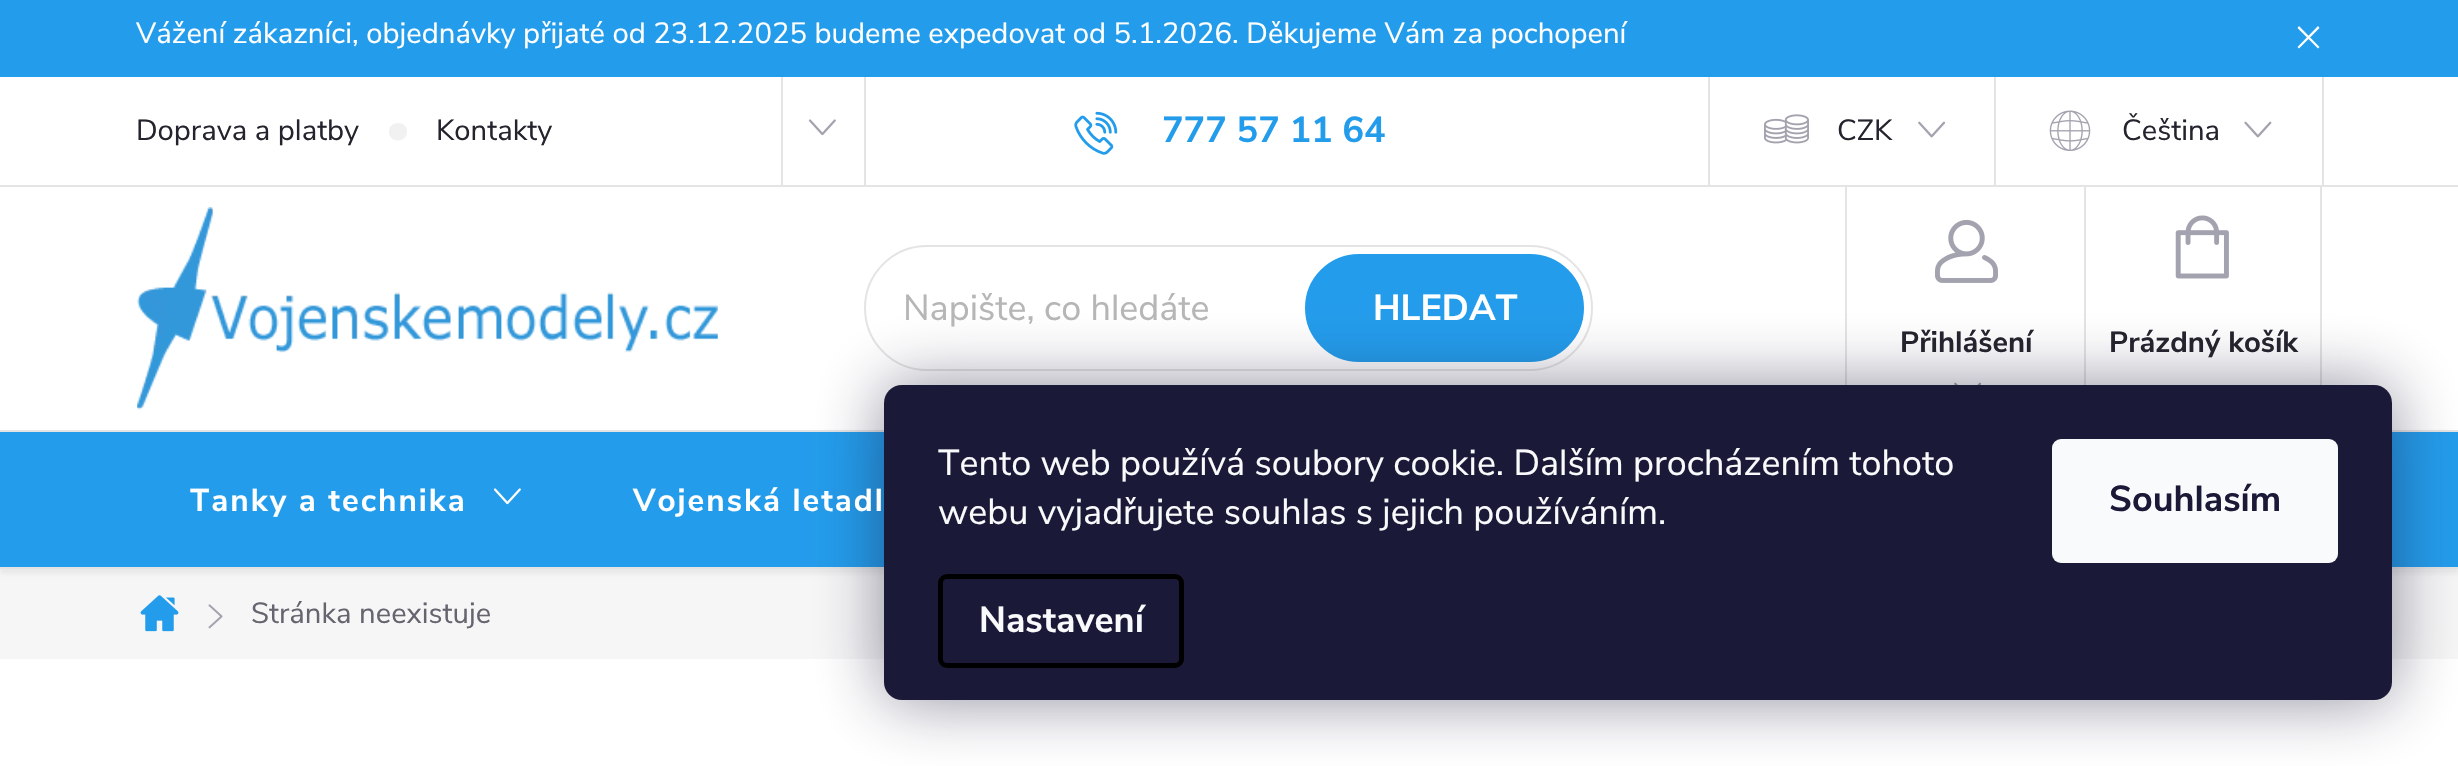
#include "include/core/SkBlurTypes.h"
#include "include/core/SkCanvas.h"
#include "include/core/SkData.h"
#include "include/core/SkFont.h"
#include "include/core/SkFontMgr.h"
#include "include/core/SkImage.h"
#include "include/core/SkMaskFilter.h"
#include "include/core/SkPaint.h"
#include "include/core/SkPathBuilder.h"
#include "include/core/SkTextBlob.h"
#include "include/effects/SkDashPathEffect.h"
#include "include/effects/SkGradientShader.h"
#include "include/utils/SkParsePath.h"

extern sk_sp<SkFontMgr> fontMgr;

void draw(SkCanvas* canvas) {
  SkPaint p;
  p.setAntiAlias(true);
  auto spacedText = [&](const char* s, float x, float y, const SkFont& font, const SkPaint& ink, float letter, float word) {
    std::vector<SkGlyphID> glyphs(font.countText(s, strlen(s), SkTextEncoding::kUTF8));
    std::vector<float> xs(glyphs.size());
    font.textToGlyphs(s, strlen(s), SkTextEncoding::kUTF8, glyphs);
    font.getXPos(glyphs, xs, x);
    float extra = 0;
    for (size_t i = 0; i < glyphs.size(); i++) {
      xs[i] += extra;
      extra += letter + word * (glyphs[i] == font.unicharToGlyph(' '));
    }
    canvas->drawTextBlob(SkTextBlob::MakeFromPosHGlyphs(glyphs, xs, y, font), 0, 0, ink);
  };
  canvas->clear(SK_ColorWHITE);
  p.setColor(SkColorSetRGB(35, 156, 235));
  canvas->drawRect(SkRect::MakeLTRB(0, 0, 2458, 77), p);
  p.setColor(SK_ColorWHITE);
  canvas->drawPath(SkPathBuilder().moveTo(2318, 26).lineTo(2319.5f, 28).lineTo(2299, 48.5f).lineTo(2297.5f, 47).close().detach(), p);
  canvas->drawPath(SkPathBuilder().moveTo(2299, 26).lineTo(2319.5f, 47).lineTo(2318, 48.5f).lineTo(2297.5f, 28).close().detach(), p);
  p.setColor(SkColorSetRGB(228, 228, 228));
  canvas->drawRect(SkRect::MakeLTRB(0, 185, 2458, 187), p);
  p.setColor(SkColorSetRGB(241, 241, 241));
  canvas->drawPath(SkPathBuilder().moveTo(407, 131.5f).cubicTo(407, 143.5f, 389, 143.5f, 389, 131.5f).cubicTo(389, 120, 407, 120, 407, 131.5f).close().detach(), p);
  p.setColor(SkColorSetRGB(228, 228, 228));
  canvas->drawRect(SkRect::MakeLTRB(864, 77, 866, 185), p);
  canvas->drawRect(SkRect::MakeLTRB(781, 77, 783, 185), p);
  canvas->drawImageRect(SkImages::DeferredFromEncodedData(SkData::MakeFromFileName("images/1.png")), SkRect::MakeLTRB(808, 119, 836, 136), SkSamplingOptions());
  canvas->drawImageRect(SkImages::DeferredFromEncodedData(SkData::MakeFromFileName("images/2.png")), SkRect::MakeLTRB(1074, 111, 1118, 155), SkSamplingOptions());
  canvas->drawRect(SkRect::MakeLTRB(2322, 77, 2324, 185), p);
  canvas->drawRect(SkRect::MakeLTRB(1708, 77, 1710, 185), p);
  canvas->drawImageRect(SkImages::DeferredFromEncodedData(SkData::MakeFromFileName("images/3.png")), SkRect::MakeLTRB(1764, 114, 1809, 144), SkSamplingOptions());
  canvas->drawImageRect(SkImages::DeferredFromEncodedData(SkData::MakeFromFileName("images/4.png")), SkRect::MakeLTRB(1918, 121, 1946, 138), SkSamplingOptions());
  canvas->drawRect(SkRect::MakeLTRB(1994, 77, 1996, 185), p);
  canvas->drawImageRect(SkImages::DeferredFromEncodedData(SkData::MakeFromFileName("images/5.png")), SkRect::MakeLTRB(2049, 110, 2091, 151), SkSamplingOptions());
  canvas->drawImageRect(SkImages::DeferredFromEncodedData(SkData::MakeFromFileName("images/6.png")), SkRect::MakeLTRB(2244, 121, 2272, 138), SkSamplingOptions());
  canvas->drawImageRect(SkImages::DeferredFromEncodedData(SkData::MakeFromFileName("images/7.png")), SkRect::MakeLTRB(137, 207, 718, 410), SkSamplingOptions());
  p.setStyle(SkPaint::kStroke_Style);
  p.setStrokeWidth(2);
  canvas->drawRoundRect(SkRect::MakeLTRB(865, 246, 1592, 370), 62, 62, p);
  p.setStyle(SkPaint::kFill_Style);
  p.setColor(SkColorSetRGB(35, 156, 235));
  canvas->drawRoundRect(SkRect::MakeLTRB(1306, 255, 1583, 361), 53, 53, p);
  p.setStyle(SkPaint::kStroke_Style);
  canvas->drawRoundRect(SkRect::MakeLTRB(1306, 255, 1583, 361), 53, 53, p);
  p.setStyle(SkPaint::kFill_Style);
  p.setColor(SkColorSetRGB(228, 228, 228));
  canvas->drawRect(SkRect::MakeLTRB(1845, 187, 1847, 385), p);
  canvas->drawImageRect(SkImages::DeferredFromEncodedData(SkData::MakeFromFileName("images/8.png")), SkRect::MakeLTRB(1935, 219, 1998, 283), SkSamplingOptions());
  canvas->drawImageRect(SkImages::DeferredFromEncodedData(SkData::MakeFromFileName("images/9.png")), SkRect::MakeLTRB(1954, 382, 1982, 385), SkSamplingOptions());
  canvas->drawRect(SkRect::MakeLTRB(2320, 187, 2322, 385), p);
  canvas->drawRect(SkRect::MakeLTRB(2084, 187, 2086, 385), p);
  canvas->drawImageRect(SkImages::DeferredFromEncodedData(SkData::MakeFromFileName("images/10.png")), SkRect::MakeLTRB(2175, 215, 2229, 279), SkSamplingOptions());
  p.setColor(SkColorSetRGB(246, 246, 246));
  canvas->drawRect(SkRect::MakeLTRB(0, 569, 2458, 659), p);
  p.setColor(SkColorSetARGB(13, 0, 0, 0));
  p.setMaskFilter(SkMaskFilter::MakeBlur(kNormal_SkBlurStyle, 2));
  canvas->drawRect(SkRect::MakeLTRB(0, 434, 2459, 574), p);
  p.setMaskFilter(nullptr);
  p.setColor(SkColorSetRGB(35, 156, 235));
  canvas->drawRect(SkRect::MakeLTRB(0, 432, 2458, 567), p);
  canvas->drawImageRect(SkImages::DeferredFromEncodedData(SkData::MakeFromFileName("images/11.png")), SkRect::MakeLTRB(493, 488, 521, 505), SkSamplingOptions());
  p.setColor(SkColorSetRGB(228, 228, 228));
  canvas->drawRect(SkRect::MakeLTRB(0, 430, 2458, 432), p);
  canvas->drawRect(SkRect::MakeLTRB(0, 567, 2458, 569), p);
  canvas->drawImageRect(SkImages::DeferredFromEncodedData(SkData::MakeFromFileName("images/12.png")), SkRect::MakeLTRB(140, 595, 179, 632), SkSamplingOptions());
  canvas->drawImageRect(SkImages::DeferredFromEncodedData(SkData::MakeFromFileName("images/13.png")), SkRect::MakeLTRB(208, 604, 223, 629), SkSamplingOptions());
  p.setColor(SkColorSetARGB(128, 27, 25, 57));
  p.setMaskFilter(SkMaskFilter::MakeBlur(kNormal_SkBlurStyle, 34));
  canvas->drawRoundRect(SkRect::MakeLTRB(884, 385, 2392, 700), 18, 18, p);
  p.setMaskFilter(nullptr);
  p.setColor(SkColorSetRGB(26, 25, 55));
  canvas->drawRoundRect(SkRect::MakeLTRB(884, 385, 2392, 700), 18, 18, p);
  p.setStyle(SkPaint::kStroke_Style);
  p.setStrokeWidth(5);
  p.setColor(SK_ColorBLACK);
  canvas->drawRoundRect(SkRect::MakeLTRB(940.5f, 576.5f, 1181.5f, 665.5f), 6.5f, 6.5f, p);
  p.setStyle(SkPaint::kFill_Style);
  p.setColor(SkColorSetRGB(248, 250, 251));
  canvas->drawRoundRect(SkRect::MakeLTRB(2052, 439, 2338, 563), 9, 9, p);
  SkFont font1(fontMgr->matchFamilyStyle("Nunito Sans", SkFontStyle::Normal()), 29.25f);
  font1.setSubpixel(true);
  p.setColor(SK_ColorWHITE);
  canvas->drawString("Vážení zákazníci, objednávky přijaté od 23.12.2025 budeme expedovat od 5.1.2026. Děkujeme Vám za pochopení", 136, 43, font1, p);
  p.setColor(SkColorSetRGB(36, 36, 46));
  canvas->drawString("Doprava a platby", 136, 140, font1, p);
  canvas->drawString("Kontakty", 436, 140, font1, p);
  SkFont font2(fontMgr->matchFamilyStyle("Nunito Sans", SkFontStyle::Bold()), 36);
  font2.setSubpixel(true);
  p.setColor(SkColorSetRGB(35, 156, 235));
  canvas->drawString("777 57 11 64", 1162, 142, font2, p);
  p.setColor(SkColorSetRGB(36, 36, 46));
  canvas->drawString("CZK", 1837, 140, font1, p);
  canvas->drawString("Čeština", 2122, 140, font1, p);
  SkFont font3(fontMgr->matchFamilyStyle("Nunito Sans", SkFontStyle::Normal()), 36);
  font3.setSubpixel(true);
  p.setColor(SkColorSetRGB(182, 182, 182));
  canvas->drawString("Napište, co hledáte", 903, 320, font3, p);
  p.setColor(SK_ColorWHITE);
  canvas->drawString("HLEDAT", 1373, 320, font2, p);
  SkFont font4(fontMgr->matchFamilyStyle("Nunito Sans", SkFontStyle::Bold()), 29.25f);
  font4.setSubpixel(true);
  p.setColor(SkColorSetRGB(36, 36, 46));
  canvas->drawString("Přihlášení", 1900, 352, font4, p);
  canvas->drawString("Prázdný košík", 2109, 352, font4, p);
  SkFont font5(fontMgr->matchFamilyStyle("Nunito Sans", SkFontStyle::Bold()), 31.5f);
  font5.setSubpixel(true);
  p.setColor(SK_ColorWHITE);
  spacedText("Tanky a technika", 190, 511, font5, p, 2, 0);
  spacedText("Vojenská letadl", 633, 511, font5, p, 2, 0);
  p.setColor(SkColorSetRGB(101, 101, 112));
  canvas->drawString("Stránka neexistuje", 251, 623, font1, p);
  p.setColor(SkColorSetRGB(248, 250, 251));
  canvas->drawString("Tento web používá soubory cookie. Dalším procházením tohoto", 938, 475, font3, p);
  canvas->drawString("webu vyjadřujete souhlas s jejich používáním.", 938, 524, font3, p);
  canvas->drawString("Nastavení", 979, 632, font2, p);
  p.setColor(SkColorSetRGB(26, 25, 55));
  canvas->drawString("Souhlasím", 2109, 511, font2, p);
}
